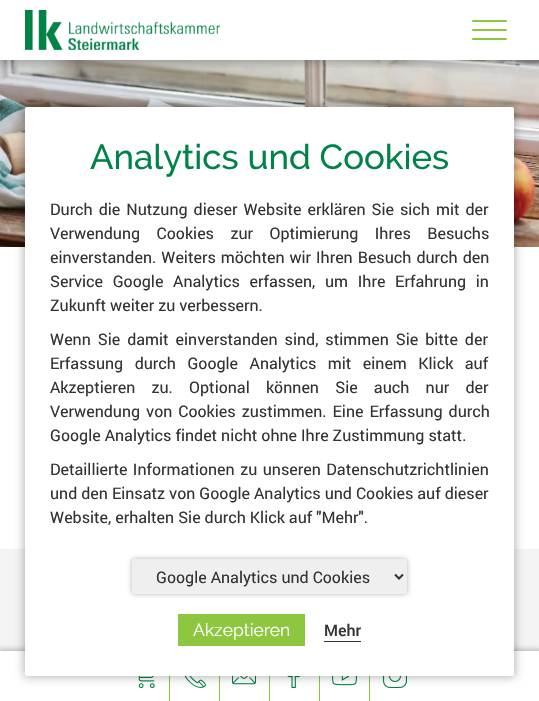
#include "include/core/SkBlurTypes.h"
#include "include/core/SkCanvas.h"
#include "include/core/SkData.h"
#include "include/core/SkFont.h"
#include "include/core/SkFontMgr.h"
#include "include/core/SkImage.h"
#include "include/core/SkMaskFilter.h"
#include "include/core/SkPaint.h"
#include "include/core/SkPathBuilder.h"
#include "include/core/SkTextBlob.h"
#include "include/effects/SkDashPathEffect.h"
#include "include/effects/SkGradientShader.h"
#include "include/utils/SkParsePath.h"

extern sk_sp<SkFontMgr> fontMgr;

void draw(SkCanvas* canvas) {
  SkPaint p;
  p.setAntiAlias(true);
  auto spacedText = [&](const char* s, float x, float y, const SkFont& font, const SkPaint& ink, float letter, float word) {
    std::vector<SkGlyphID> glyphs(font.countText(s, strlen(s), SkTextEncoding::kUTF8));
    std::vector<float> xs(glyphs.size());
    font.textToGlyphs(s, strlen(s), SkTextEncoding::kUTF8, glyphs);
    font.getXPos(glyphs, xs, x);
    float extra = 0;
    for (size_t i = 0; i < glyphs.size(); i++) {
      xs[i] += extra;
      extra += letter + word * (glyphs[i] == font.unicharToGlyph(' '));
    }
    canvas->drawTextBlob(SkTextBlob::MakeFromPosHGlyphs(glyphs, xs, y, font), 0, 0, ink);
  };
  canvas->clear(SK_ColorWHITE);
  canvas->drawImageRect(SkImages::DeferredFromEncodedData(SkData::MakeFromFileName("images/2.png")), SkRect::MakeLTRB(0, 60, 539, 247), SkSamplingOptions());
  canvas->save();
  canvas->clipRect(SkRect::MakeLTRB(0, 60, 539, 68));
  p.setColor(SkColorSetARGB(77, 0, 0, 0));
  p.setMaskFilter(SkMaskFilter::MakeBlur(kNormal_SkBlurStyle, 5));
  canvas->drawRect(SkRect::MakeLTRB(-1, -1, 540, 61), p);
  p.setMaskFilter(nullptr);
  canvas->restore();
  canvas->drawImageRect(SkImages::DeferredFromEncodedData(SkData::MakeFromFileName("images/1.png")), SkRect::MakeLTRB(25, 10, 220, 50), SkSamplingOptions());
  p.setColor(SkColorSetRGB(141, 198, 63));
  canvas->drawRoundRect(SkRect::MakeLTRB(472, 20, 507, 22), 1, 1, p);
  canvas->drawRoundRect(SkRect::MakeLTRB(472, 29, 507, 31), 1, 1, p);
  canvas->drawRoundRect(SkRect::MakeLTRB(472, 38, 507, 40), 1, 1, p);
  p.setColor(SkColorSetRGB(244, 244, 244));
  canvas->drawRect(SkRect::MakeLTRB(0, 549, 539, 651), p);
  p.setColor(SkColorSetARGB(77, 0, 0, 0));
  p.setMaskFilter(SkMaskFilter::MakeBlur(kNormal_SkBlurStyle, 3));
  canvas->drawRect(SkRect::MakeLTRB(-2, 650, 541, 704), p);
  p.setMaskFilter(nullptr);
  p.setColor(SK_ColorWHITE);
  canvas->drawRect(SkRect::MakeLTRB(0, 651, 539, 701), p);
  p.setColor(SkColorSetRGB(141, 198, 63));
  canvas->drawRect(SkRect::MakeLTRB(169, 676, 170, 701), p);
  canvas->drawImageRect(SkImages::DeferredFromEncodedData(SkData::MakeFromFileName("images/3.png")), SkRect::MakeLTRB(138, 676, 155, 688), SkSamplingOptions());
  canvas->drawRect(SkRect::MakeLTRB(219, 676, 220, 701), p);
  canvas->drawImageRect(SkImages::DeferredFromEncodedData(SkData::MakeFromFileName("images/4.png")), SkRect::MakeLTRB(184, 676, 206, 688), SkSamplingOptions());
  canvas->drawRect(SkRect::MakeLTRB(269, 676, 270, 701), p);
  canvas->drawImageRect(SkImages::DeferredFromEncodedData(SkData::MakeFromFileName("images/5.png")), SkRect::MakeLTRB(232, 676, 256, 685), SkSamplingOptions());
  canvas->drawRect(SkRect::MakeLTRB(319, 676, 320, 701), p);
  canvas->drawImageRect(SkImages::DeferredFromEncodedData(SkData::MakeFromFileName("images/6.png")), SkRect::MakeLTRB(287, 676, 300, 688), SkSamplingOptions());
  canvas->drawRect(SkRect::MakeLTRB(369, 676, 370, 701), p);
  canvas->drawImageRect(SkImages::DeferredFromEncodedData(SkData::MakeFromFileName("images/7.png")), SkRect::MakeLTRB(332, 676, 357, 686), SkSamplingOptions());
  canvas->drawImageRect(SkImages::DeferredFromEncodedData(SkData::MakeFromFileName("images/8.png")), SkRect::MakeLTRB(383, 676, 407, 688), SkSamplingOptions());
  p.setColor(SkColorSetARGB(77, 0, 0, 0));
  p.setMaskFilter(SkMaskFilter::MakeBlur(kNormal_SkBlurStyle, 5));
  canvas->drawRoundRect(SkRect::MakeLTRB(24, 106, 515, 677), 3, 3, p);
  p.setMaskFilter(nullptr);
  p.setColor(SK_ColorWHITE);
  canvas->drawRoundRect(SkRect::MakeLTRB(25, 107, 514, 676), 2, 2, p);
  p.setColor(SkColorSetARGB(77, 0, 0, 0));
  p.setMaskFilter(SkMaskFilter::MakeBlur(kNormal_SkBlurStyle, 2.5f));
  canvas->drawRoundRect(SkRect::MakeLTRB(132, 559, 407, 594), 2, 2, p);
  p.setMaskFilter(nullptr);
  p.setColor(SkColorSetRGB(239, 239, 239));
  canvas->drawRoundRect(SkRect::MakeLTRB(132, 559, 407, 594), 2, 2, p);
  p.setStyle(SkPaint::kStroke_Style);
  p.setStrokeWidth(2);
  p.setColor(SkColorSetRGB(51, 51, 51));
  canvas->drawPath(SkPathBuilder().moveTo(395, 574.5f).lineTo(399, 578.5f).lineTo(403, 574.5f).detach(), p);
  p.setStyle(SkPaint::kFill_Style);
  p.setColor(SkColorSetRGB(141, 198, 63));
  canvas->drawRect(SkRect::MakeLTRB(178, 614, 305, 646), p);
  p.setColor(SkColorSetRGB(51, 51, 51));
  canvas->drawRect(SkRect::MakeLTRB(324, 641, 361, 642), p);
  SkFont font1(fontMgr->matchFamilyStyle("Raleway", SkFontStyle(500, SkFontStyle::kNormal_Width, SkFontStyle::kUpright_Slant)), 34.75f);
  font1.setSubpixel(true);
  p.setColor(SkColorSetRGB(0, 131, 72));
  canvas->drawString("Analytics und Cookies", 90, 169, font1, p);
  SkFont font2(fontMgr->matchFamilyStyle("Roboto", SkFontStyle::Normal()), 16);
  font2.setSubpixel(true);
  p.setColor(SkColorSetRGB(51, 51, 51));
  spacedText("Durch die Nutzung dieser Website erklären Sie sich mit der", 50, 215, font2, p, 0, 2);
  spacedText("Verwendung Cookies zur Optimierung Ihres Besuchs", 50, 239, font2, p, 0, 12.5f);
  spacedText("einverstanden. Weiters möchten wir Ihren Besuch durch den", 50, 263, font2, p, 0, 1);
  spacedText("Service Google Analytics erfassen, um Ihre Erfahrung in", 50, 287, font2, p, 0, 5.75f);
  canvas->drawString("Zukunft weiter zu verbessern.", 50, 311, font2, p);
  spacedText("Wenn Sie damit einverstanden sind, stimmen Sie bitte der", 50, 345, font2, p, 0, 3);
  spacedText("Erfassung durch Google Analytics mit einem Klick auf", 50, 369, font2, p, 0, 7.5f);
  spacedText("Akzeptieren zu. Optional können Sie auch nur der", 50, 393, font2, p, 0, 12.25f);
  spacedText("Verwendung von Cookies zustimmen. Eine Erfassung durch", 50, 417, font2, p, 0, 2);
  canvas->drawString("Google Analytics findet nicht ohne Ihre Zustimmung statt.", 50, 441, font2, p);
  spacedText("Detaillierte Informationen zu unseren Datenschutzrichtlinien", 50, 475, font2, p, 0, 1.5f);
  canvas->drawString("und den Einsatz von Google Analytics und Cookies auf dieser", 50, 499, font2, p);
  canvas->drawString("Website, erhalten Sie durch Klick auf \"Mehr\".", 50, 523, font2, p);
  canvas->drawString("Google Analytics und Cookies", 156, 583, font2, p);
  SkFont font3(fontMgr->matchFamilyStyle("Raleway", SkFontStyle::Normal()), 17.5f);
  font3.setSubpixel(true);
  p.setColor(SK_ColorWHITE);
  canvas->drawString("Akzeptieren", 193, 636, font3, p);
  SkFont font4(fontMgr->matchFamilyStyle("Roboto", SkFontStyle(500, SkFontStyle::kNormal_Width, SkFontStyle::kUpright_Slant)), 16);
  font4.setSubpixel(true);
  p.setColor(SkColorSetRGB(51, 51, 51));
  canvas->drawString("Mehr", 324, 636, font4, p);
}
